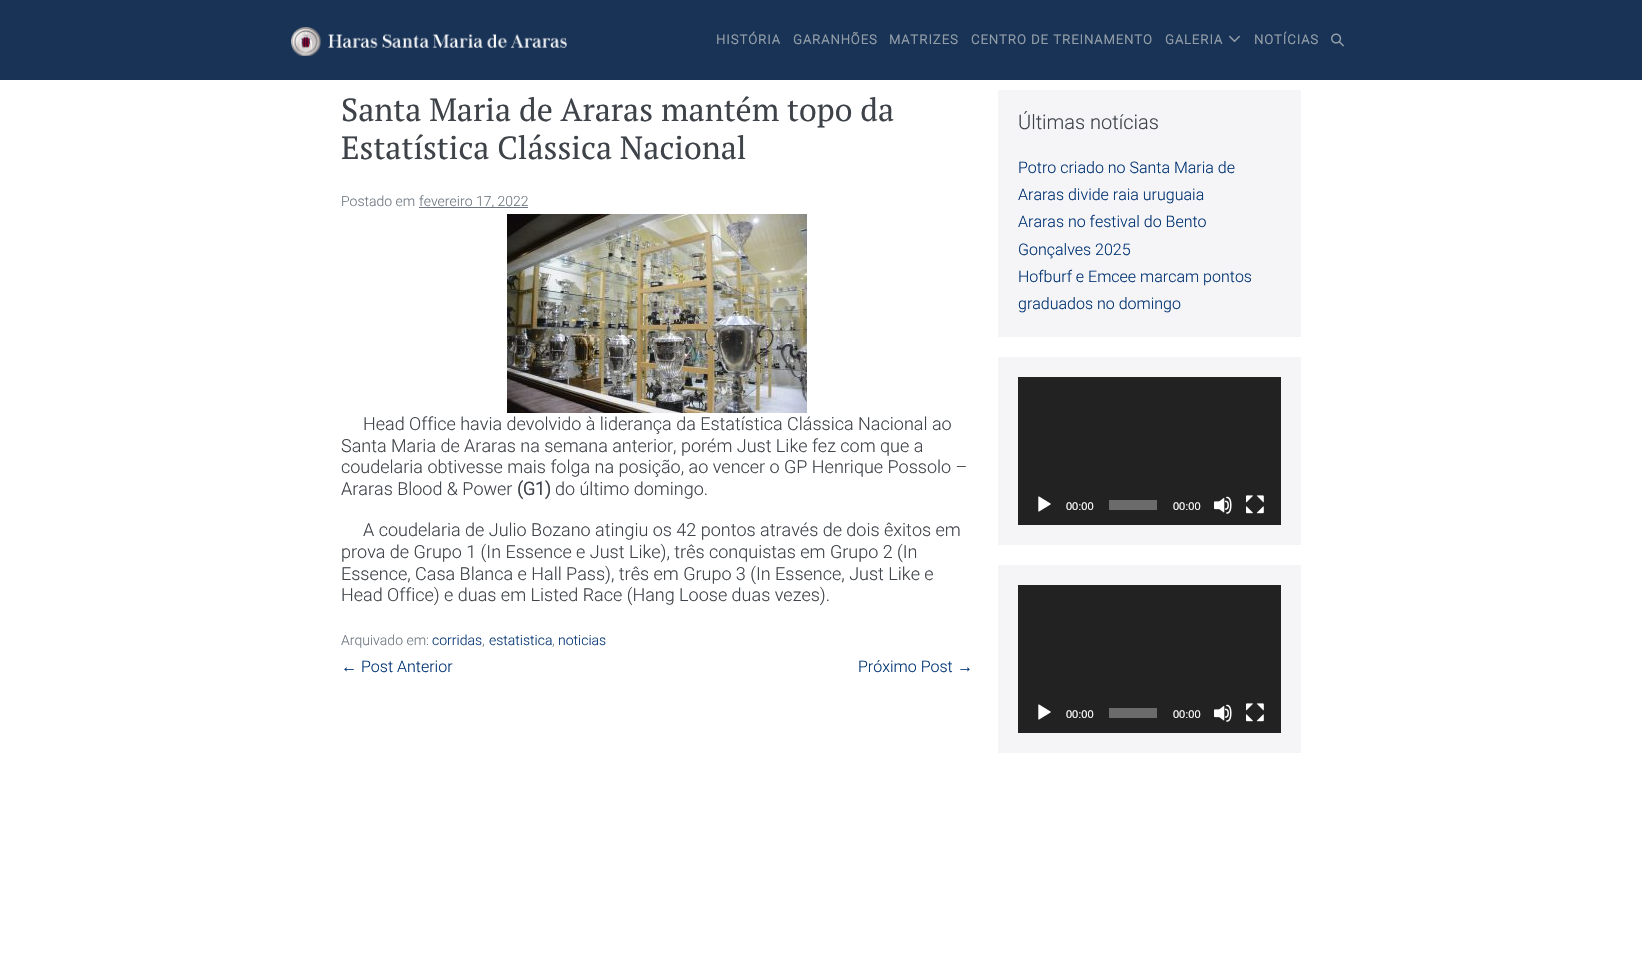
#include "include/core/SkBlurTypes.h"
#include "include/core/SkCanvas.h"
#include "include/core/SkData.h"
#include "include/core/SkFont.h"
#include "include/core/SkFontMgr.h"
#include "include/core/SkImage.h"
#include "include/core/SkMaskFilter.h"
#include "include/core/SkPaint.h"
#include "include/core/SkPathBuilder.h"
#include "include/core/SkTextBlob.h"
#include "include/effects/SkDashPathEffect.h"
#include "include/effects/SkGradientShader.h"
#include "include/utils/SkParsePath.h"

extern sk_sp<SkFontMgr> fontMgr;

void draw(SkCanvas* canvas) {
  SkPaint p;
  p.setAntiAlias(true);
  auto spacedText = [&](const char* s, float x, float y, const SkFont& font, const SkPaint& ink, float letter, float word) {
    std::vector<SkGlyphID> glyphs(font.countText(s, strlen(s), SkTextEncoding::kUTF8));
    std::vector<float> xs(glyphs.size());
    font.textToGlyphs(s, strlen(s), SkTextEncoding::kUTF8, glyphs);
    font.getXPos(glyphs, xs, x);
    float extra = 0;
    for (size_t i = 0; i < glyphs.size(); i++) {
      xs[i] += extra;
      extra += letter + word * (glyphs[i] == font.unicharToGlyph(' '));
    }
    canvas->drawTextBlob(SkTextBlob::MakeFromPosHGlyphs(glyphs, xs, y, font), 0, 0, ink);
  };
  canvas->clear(SK_ColorWHITE);
  p.setColor(SkColorSetRGB(25, 51, 86));
  canvas->drawRect(SkRect::MakeLTRB(0, 0, 1642, 80), p);
  canvas->drawImageRect(SkImages::DeferredFromEncodedData(SkData::MakeFromFileName("images/1.png")), SkRect::MakeLTRB(291, 27, 567, 56), SkSamplingOptions());
  canvas->drawImageRect(SkImages::DeferredFromEncodedData(SkData::MakeFromFileName("images/2.png")), SkRect::MakeLTRB(1229, 35, 1240, 43), SkSamplingOptions());
  canvas->drawImageRect(SkImages::DeferredFromEncodedData(SkData::MakeFromFileName("images/3.png")), SkRect::MakeLTRB(1331, 33, 1344, 47), SkSamplingOptions());
  p.setColor(SkColorSetRGB(109, 118, 128));
  canvas->drawRect(SkRect::MakeLTRB(419, 207, 528, 208), p);
  canvas->drawImageRect(SkImages::DeferredFromEncodedData(SkData::MakeFromFileName("images/4.png")), SkRect::MakeLTRB(507, 214, 807, 413), SkSamplingOptions());
  p.setColor(SkColorSetRGB(245, 245, 247));
  canvas->drawRect(SkRect::MakeLTRB(998, 90, 1301, 337), p);
  canvas->drawRect(SkRect::MakeLTRB(998, 357, 1301, 545), p);
  p.setColor(SkColorSetRGB(34, 34, 34));
  canvas->drawRect(SkRect::MakeLTRB(1018, 377, 1281, 525), p);
  canvas->drawImageRect(SkImages::DeferredFromEncodedData(SkData::MakeFromFileName("images/5.png")), SkRect::MakeLTRB(1038, 496, 1051, 512), SkSamplingOptions());
  p.setColor(SkColorSetRGB(107, 107, 107));
  canvas->drawRect(SkRect::MakeLTRB(1109, 500, 1157, 510), p);
  canvas->drawImageRect(SkImages::DeferredFromEncodedData(SkData::MakeFromFileName("images/6.png")), SkRect::MakeLTRB(1214, 496, 1232, 514), SkSamplingOptions());
  canvas->drawImageRect(SkImages::DeferredFromEncodedData(SkData::MakeFromFileName("images/7.png")), SkRect::MakeLTRB(1246, 495, 1264, 514), SkSamplingOptions());
  p.setColor(SkColorSetRGB(245, 245, 247));
  canvas->drawRect(SkRect::MakeLTRB(998, 565, 1301, 753), p);
  p.setColor(SkColorSetRGB(34, 34, 34));
  canvas->drawRect(SkRect::MakeLTRB(1018, 585, 1281, 733), p);
  canvas->drawImageRect(SkImages::DeferredFromEncodedData(SkData::MakeFromFileName("images/5.png")), SkRect::MakeLTRB(1038, 704, 1051, 720), SkSamplingOptions());
  p.setColor(SkColorSetRGB(107, 107, 107));
  canvas->drawRect(SkRect::MakeLTRB(1109, 708, 1157, 718), p);
  canvas->drawImageRect(SkImages::DeferredFromEncodedData(SkData::MakeFromFileName("images/6.png")), SkRect::MakeLTRB(1214, 704, 1232, 722), SkSamplingOptions());
  canvas->drawImageRect(SkImages::DeferredFromEncodedData(SkData::MakeFromFileName("images/7.png")), SkRect::MakeLTRB(1246, 703, 1264, 722), SkSamplingOptions());
  SkFont font1(fontMgr->matchFamilyStyle("Roboto", SkFontStyle::Bold()), 13);
  font1.setSubpixel(true);
  p.setColor(SkColorSetRGB(147, 158, 168));
  spacedText("HISTÓRIA", 716, 44, font1, p, 1, 0);
  spacedText("GARANHÕES", 793, 44, font1, p, 1, 0);
  spacedText("MATRIZES", 889, 44, font1, p, 1, 0);
  spacedText("CENTRO DE TREINAMENTO", 971, 44, font1, p, 1, 0);
  spacedText("GALERIA", 1165, 44, font1, p, 1, 0);
  spacedText("NOTÍCIAS", 1254, 44, font1, p, 1, 0);
  SkFont font2(fontMgr->matchFamilyStyle("PT Serif", SkFontStyle::Normal()), 32);
  font2.setSubpixel(true);
  p.setColor(SkColorSetRGB(62, 67, 73));
  canvas->drawString("Santa Maria de Araras mantém topo da", 341, 121, font2, p);
  canvas->drawString("Estatística Clássica Nacional", 341, 159, font2, p);
  SkFont font3(fontMgr->matchFamilyStyle("Roboto", SkFontStyle(300, SkFontStyle::kNormal_Width, SkFontStyle::kUpright_Slant)), 14);
  font3.setSubpixel(true);
  p.setColor(SkColorSetRGB(109, 118, 128));
  canvas->drawString("Postado em", 341, 206, font3, p);
  canvas->drawString("fevereiro 17, 2022", 419, 206, font3, p);
  SkFont font4(fontMgr->matchFamilyStyle("Roboto", SkFontStyle(300, SkFontStyle::kNormal_Width, SkFontStyle::kUpright_Slant)), 18);
  font4.setSubpixel(true);
  p.setColor(SkColorSetRGB(62, 67, 73));
  canvas->drawString("Head Office havia devolvido à liderança da Estatística Clássica Nacional ao", 363, 430, font4, p);
  canvas->drawString("Santa Maria de Araras na semana anterior, porém Just Like fez com que a", 341, 452, font4, p);
  canvas->drawString("coudelaria obtivesse mais folga na posição, ao vencer o GP Henrique Possolo –", 341, 473, font4, p);
  canvas->drawString("Araras Blood & Power", 341, 495, font4, p);
  SkFont font5(fontMgr->matchFamilyStyle("Roboto", SkFontStyle::Bold()), 18);
  font5.setSubpixel(true);
  canvas->drawString("(G1)", 517, 495, font5, p);
  canvas->drawString("do último domingo.", 555, 495, font4, p);
  canvas->drawString("A coudelaria de Julio Bozano atingiu os 42 pontos através de dois êxitos em", 363, 536, font4, p);
  canvas->drawString("prova de Grupo 1 (In Essence e Just Like), três conquistas em Grupo 2 (In", 341, 558, font4, p);
  canvas->drawString("Essence, Casa Blanca e Hall Pass), três em Grupo 3 (In Essence, Just Like e", 341, 580, font4, p);
  canvas->drawString("Head Office) e duas em Listed Race (Hang Loose duas vezes).", 341, 601, font4, p);
  p.setColor(SkColorSetRGB(109, 118, 128));
  canvas->drawString("Arquivado em:", 341, 645, font3, p);
  p.setColor(SkColorSetRGB(1, 51, 115));
  canvas->drawString("corridas", 432, 645, font3, p);
  p.setColor(SkColorSetRGB(109, 118, 128));
  canvas->drawString(",", 482, 645, font3, p);
  p.setColor(SkColorSetRGB(1, 51, 115));
  canvas->drawString("estatistica", 489, 645, font3, p);
  p.setColor(SkColorSetRGB(109, 118, 128));
  canvas->drawString(",", 552, 645, font3, p);
  p.setColor(SkColorSetRGB(1, 51, 115));
  canvas->drawString("noticias", 558, 645, font3, p);
  SkFont font6(fontMgr->matchFamilyStyle("Liberation Serif", SkFontStyle::Normal()), 16);
  font6.setSubpixel(true);
  canvas->drawString("←", 341, 672, font6, p);
  SkFont font7(fontMgr->matchFamilyStyle("Roboto", SkFontStyle(300, SkFontStyle::kNormal_Width, SkFontStyle::kUpright_Slant)), 16);
  font7.setSubpixel(true);
  canvas->drawString("Post Anterior", 361, 672, font7, p);
  canvas->drawString("Próximo Post", 858, 672, font7, p);
  canvas->drawString("→", 957, 672, font6, p);
  SkFont font8(fontMgr->matchFamilyStyle("Roboto", SkFontStyle(300, SkFontStyle::kNormal_Width, SkFontStyle::kUpright_Slant)), 20);
  font8.setSubpixel(true);
  p.setColor(SkColorSetRGB(62, 67, 73));
  canvas->drawString("Últimas notícias", 1018, 129, font8, p);
  p.setColor(SkColorSetRGB(1, 51, 115));
  canvas->drawString("Potro criado no Santa Maria de", 1018, 173, font7, p);
  canvas->drawString("Araras divide raia uruguaia", 1018, 200, font7, p);
  canvas->drawString("Araras no festival do Bento", 1018, 227, font7, p);
  canvas->drawString("Gonçalves 2025", 1018, 255, font7, p);
  canvas->drawString("Hofburf e Emcee marcam pontos", 1018, 282, font7, p);
  canvas->drawString("graduados no domingo", 1018, 309, font7, p);
  SkFont font9(fontMgr->matchFamilyStyle("Liberation Sans", SkFontStyle::Normal()), 11);
  font9.setSubpixel(true);
  p.setColor(SK_ColorWHITE);
  canvas->drawString("00:00", 1066, 510, font9, p);
  canvas->drawString("00:00", 1173, 510, font9, p);
  canvas->drawString("00:00", 1066, 718, font9, p);
  canvas->drawString("00:00", 1173, 718, font9, p);
}
